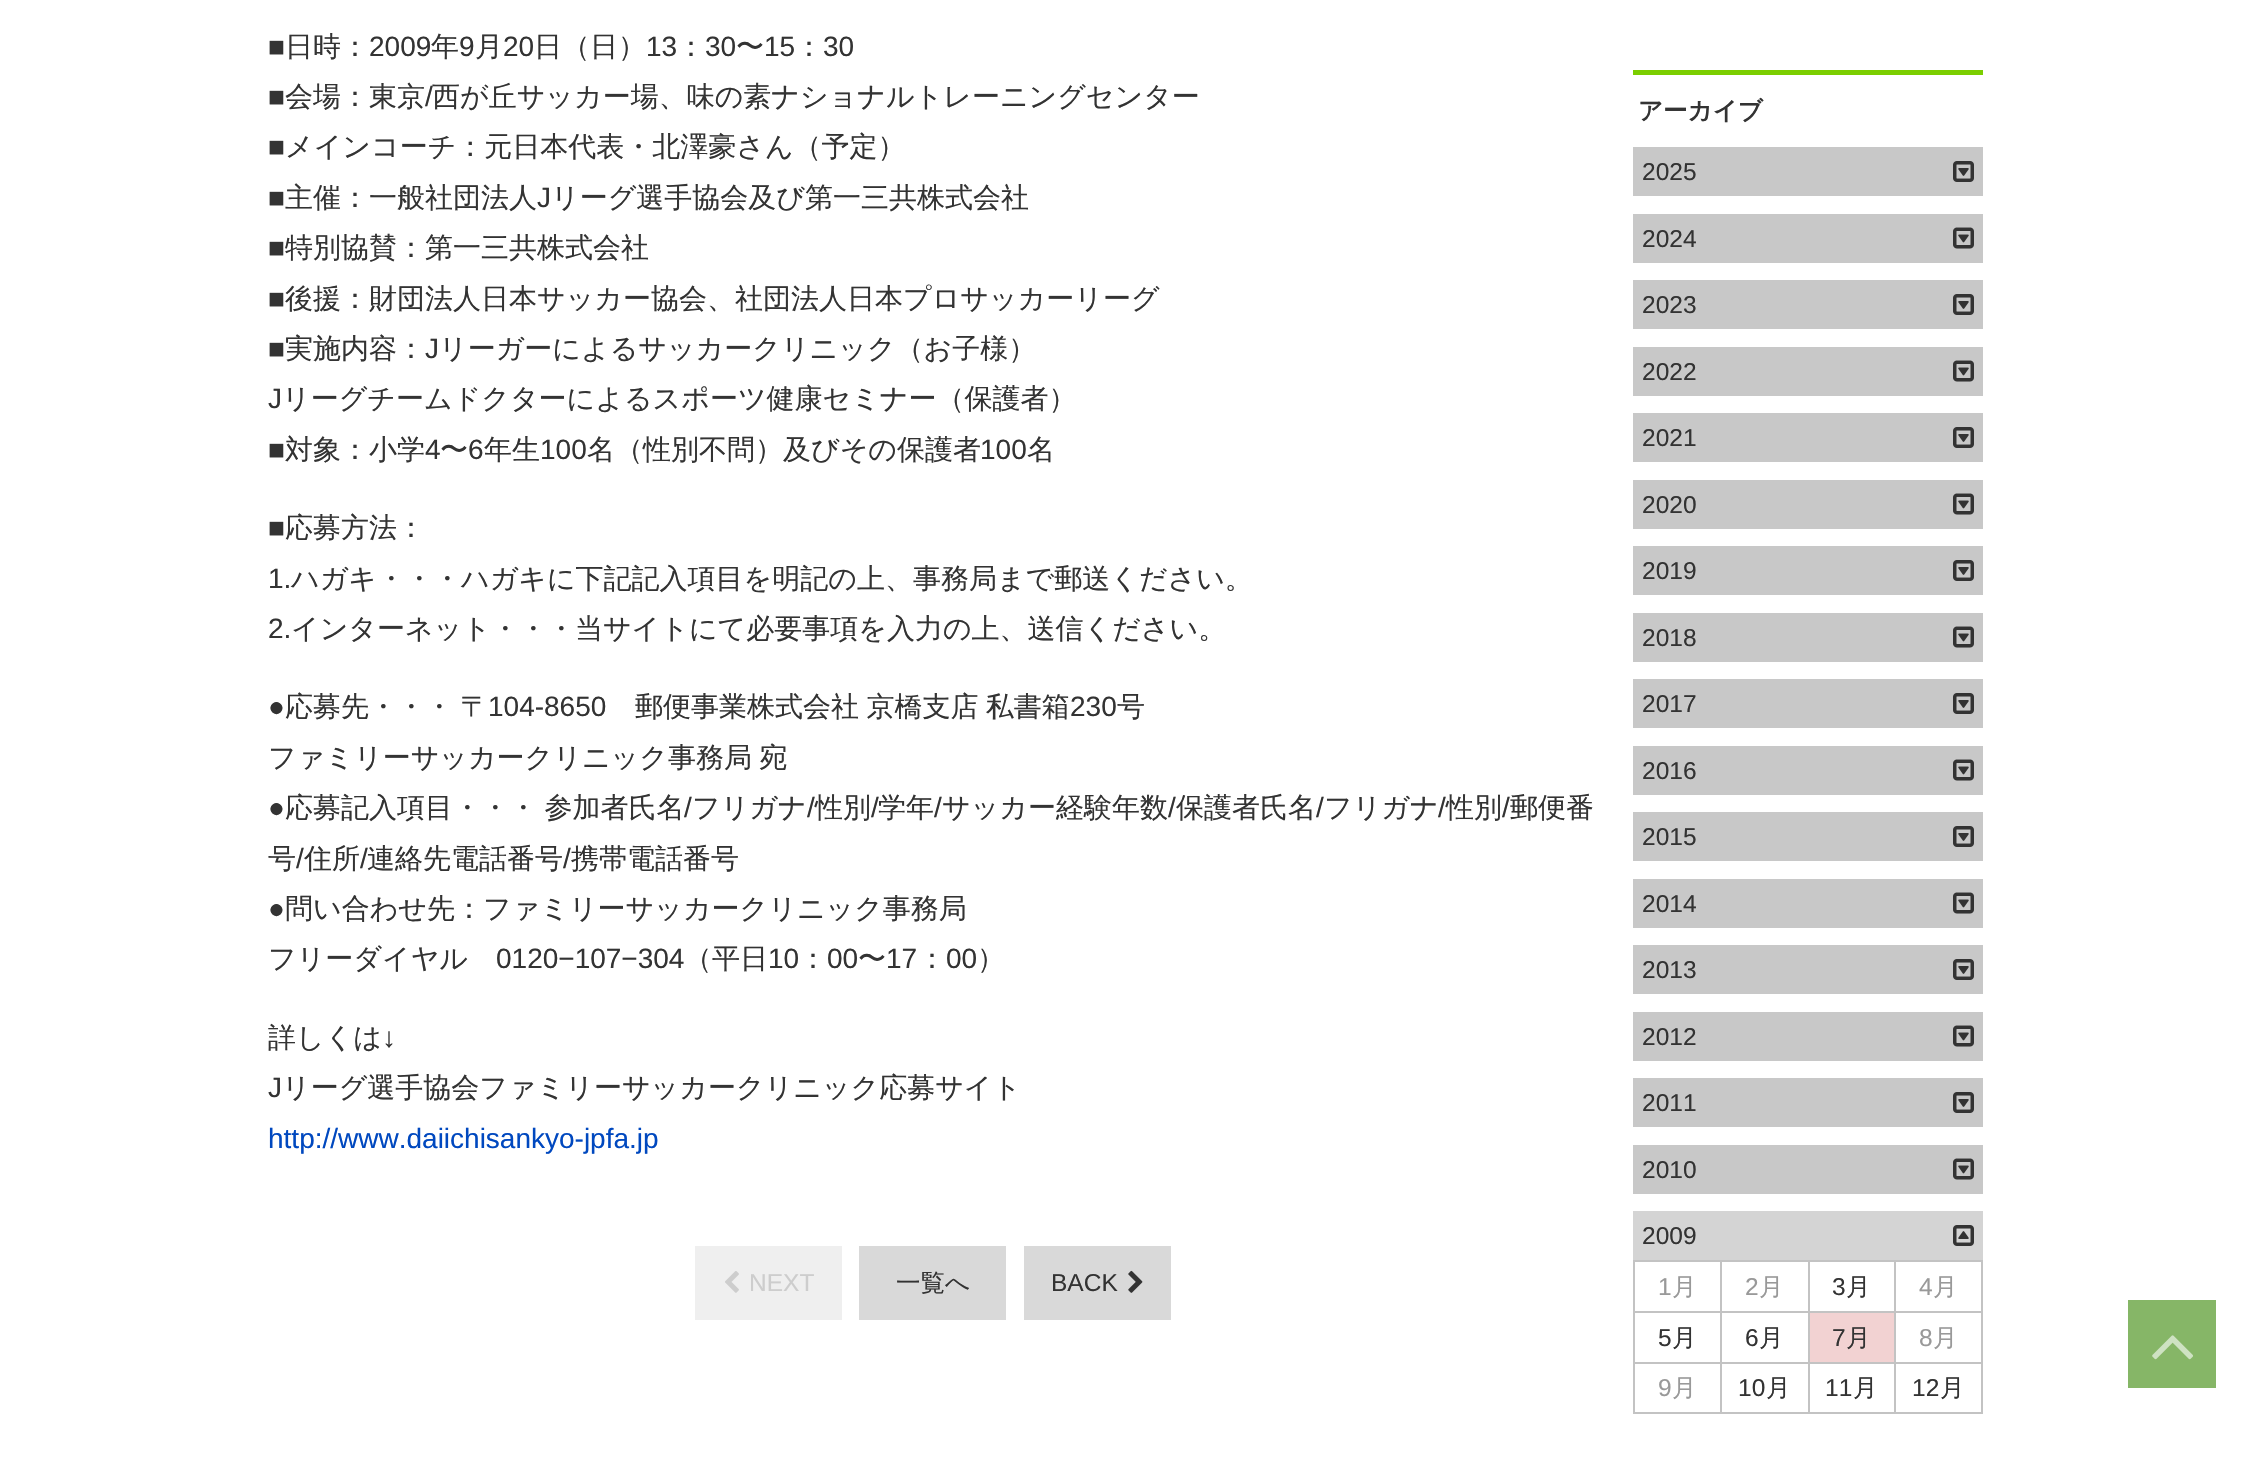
#include "include/core/SkBlurTypes.h"
#include "include/core/SkCanvas.h"
#include "include/core/SkData.h"
#include "include/core/SkFont.h"
#include "include/core/SkFontMgr.h"
#include "include/core/SkImage.h"
#include "include/core/SkMaskFilter.h"
#include "include/core/SkPaint.h"
#include "include/core/SkPathBuilder.h"
#include "include/core/SkTextBlob.h"
#include "include/effects/SkDashPathEffect.h"
#include "include/effects/SkGradientShader.h"
#include "include/utils/SkParsePath.h"

extern sk_sp<SkFontMgr> fontMgr;

void draw(SkCanvas* canvas) {
  SkPaint p;
  p.setAntiAlias(true);
  auto spacedText = [&](const char* s, float x, float y, const SkFont& font, const SkPaint& ink, float letter, float word) {
    std::vector<SkGlyphID> glyphs(font.countText(s, strlen(s), SkTextEncoding::kUTF8));
    std::vector<float> xs(glyphs.size());
    font.textToGlyphs(s, strlen(s), SkTextEncoding::kUTF8, glyphs);
    font.getXPos(glyphs, xs, x);
    float extra = 0;
    for (size_t i = 0; i < glyphs.size(); i++) {
      xs[i] += extra;
      extra += letter + word * (glyphs[i] == font.unicharToGlyph(' '));
    }
    canvas->drawTextBlob(SkTextBlob::MakeFromPosHGlyphs(glyphs, xs, y, font), 0, 0, ink);
  };
  canvas->clear(SK_ColorWHITE);
  p.setColor(SkColorSetRGB(239, 239, 239));
  canvas->drawRect(SkRect::MakeLTRB(695, 1246, 842, 1320), p);
  canvas->drawImageRect(SkImages::DeferredFromEncodedData(SkData::MakeFromFileName("images/1.png")), SkRect::MakeLTRB(725, 1271, 739, 1293), SkSamplingOptions());
  p.setColor(SkColorSetRGB(217, 217, 217));
  canvas->drawRect(SkRect::MakeLTRB(859, 1246, 1006, 1320), p);
  canvas->drawRect(SkRect::MakeLTRB(1024, 1246, 1171, 1320), p);
  canvas->drawImageRect(SkImages::DeferredFromEncodedData(SkData::MakeFromFileName("images/2.png")), SkRect::MakeLTRB(1128, 1270, 1143, 1293), SkSamplingOptions());
  p.setColor(SkColorSetRGB(123, 206, 0));
  canvas->drawRect(SkRect::MakeLTRB(1633, 70, 1983, 75), p);
  p.setColor(SkColorSetRGB(200, 200, 200));
  canvas->drawRect(SkRect::MakeLTRB(1633, 147, 1983, 196), p);
  canvas->drawImageRect(SkImages::DeferredFromEncodedData(SkData::MakeFromFileName("images/3.png")), SkRect::MakeLTRB(1953, 161, 1974, 182), SkSamplingOptions());
  canvas->drawRect(SkRect::MakeLTRB(1633, 214, 1983, 263), p);
  canvas->drawImageRect(SkImages::DeferredFromEncodedData(SkData::MakeFromFileName("images/4.png")), SkRect::MakeLTRB(1953, 227, 1974, 249), SkSamplingOptions());
  canvas->drawRect(SkRect::MakeLTRB(1633, 280, 1983, 329), p);
  canvas->drawImageRect(SkImages::DeferredFromEncodedData(SkData::MakeFromFileName("images/3.png")), SkRect::MakeLTRB(1953, 294, 1974, 315), SkSamplingOptions());
  canvas->drawRect(SkRect::MakeLTRB(1633, 347, 1983, 396), p);
  canvas->drawImageRect(SkImages::DeferredFromEncodedData(SkData::MakeFromFileName("images/4.png")), SkRect::MakeLTRB(1953, 360, 1974, 382), SkSamplingOptions());
  canvas->drawRect(SkRect::MakeLTRB(1633, 413, 1983, 462), p);
  canvas->drawImageRect(SkImages::DeferredFromEncodedData(SkData::MakeFromFileName("images/3.png")), SkRect::MakeLTRB(1953, 427, 1974, 448), SkSamplingOptions());
  canvas->drawRect(SkRect::MakeLTRB(1633, 480, 1983, 529), p);
  canvas->drawImageRect(SkImages::DeferredFromEncodedData(SkData::MakeFromFileName("images/4.png")), SkRect::MakeLTRB(1953, 493, 1974, 515), SkSamplingOptions());
  canvas->drawRect(SkRect::MakeLTRB(1633, 546, 1983, 595), p);
  canvas->drawImageRect(SkImages::DeferredFromEncodedData(SkData::MakeFromFileName("images/3.png")), SkRect::MakeLTRB(1953, 560, 1974, 581), SkSamplingOptions());
  canvas->drawRect(SkRect::MakeLTRB(1633, 613, 1983, 662), p);
  canvas->drawImageRect(SkImages::DeferredFromEncodedData(SkData::MakeFromFileName("images/4.png")), SkRect::MakeLTRB(1953, 626, 1974, 648), SkSamplingOptions());
  canvas->drawRect(SkRect::MakeLTRB(1633, 679, 1983, 728), p);
  canvas->drawImageRect(SkImages::DeferredFromEncodedData(SkData::MakeFromFileName("images/3.png")), SkRect::MakeLTRB(1953, 693, 1974, 714), SkSamplingOptions());
  canvas->drawRect(SkRect::MakeLTRB(1633, 746, 1983, 795), p);
  canvas->drawImageRect(SkImages::DeferredFromEncodedData(SkData::MakeFromFileName("images/4.png")), SkRect::MakeLTRB(1953, 759, 1974, 781), SkSamplingOptions());
  canvas->drawRect(SkRect::MakeLTRB(1633, 812, 1983, 861), p);
  canvas->drawImageRect(SkImages::DeferredFromEncodedData(SkData::MakeFromFileName("images/3.png")), SkRect::MakeLTRB(1953, 826, 1974, 847), SkSamplingOptions());
  canvas->drawRect(SkRect::MakeLTRB(1633, 879, 1983, 928), p);
  canvas->drawImageRect(SkImages::DeferredFromEncodedData(SkData::MakeFromFileName("images/4.png")), SkRect::MakeLTRB(1953, 892, 1974, 914), SkSamplingOptions());
  canvas->drawRect(SkRect::MakeLTRB(1633, 945, 1983, 994), p);
  canvas->drawImageRect(SkImages::DeferredFromEncodedData(SkData::MakeFromFileName("images/3.png")), SkRect::MakeLTRB(1953, 959, 1974, 980), SkSamplingOptions());
  canvas->drawRect(SkRect::MakeLTRB(1633, 1012, 1983, 1061), p);
  canvas->drawImageRect(SkImages::DeferredFromEncodedData(SkData::MakeFromFileName("images/4.png")), SkRect::MakeLTRB(1953, 1025, 1974, 1047), SkSamplingOptions());
  canvas->drawRect(SkRect::MakeLTRB(1633, 1078, 1983, 1127), p);
  canvas->drawImageRect(SkImages::DeferredFromEncodedData(SkData::MakeFromFileName("images/3.png")), SkRect::MakeLTRB(1953, 1092, 1974, 1113), SkSamplingOptions());
  canvas->drawRect(SkRect::MakeLTRB(1633, 1145, 1983, 1194), p);
  canvas->drawImageRect(SkImages::DeferredFromEncodedData(SkData::MakeFromFileName("images/4.png")), SkRect::MakeLTRB(1953, 1158, 1974, 1180), SkSamplingOptions());
  p.setColor(SkColorSetRGB(212, 212, 212));
  canvas->drawRect(SkRect::MakeLTRB(1633, 1211, 1983, 1260), p);
  canvas->drawImageRect(SkImages::DeferredFromEncodedData(SkData::MakeFromFileName("images/5.png")), SkRect::MakeLTRB(1953, 1225, 1974, 1246), SkSamplingOptions());
  p.setColor(SkColorSetRGB(195, 195, 195));
  canvas->drawRect(SkRect::MakeLTRB(1633, 1412, 1983, 1414), p);
  canvas->drawRect(SkRect::MakeLTRB(1633, 1260, 1635, 1414), p);
  canvas->drawRect(SkRect::MakeLTRB(1635, 1260, 1895, 1262), p);
  canvas->drawRect(SkRect::MakeLTRB(1720, 1260, 1722, 1311), p);
  canvas->drawRect(SkRect::MakeLTRB(1808, 1260, 1810, 1311), p);
  canvas->drawRect(SkRect::MakeLTRB(1894, 1260, 1896, 1311), p);
  canvas->drawRect(SkRect::MakeLTRB(1895, 1260, 1983, 1262), p);
  canvas->drawRect(SkRect::MakeLTRB(1981, 1260, 1983, 1311), p);
  canvas->drawRect(SkRect::MakeLTRB(1635, 1311, 1895, 1313), p);
  canvas->drawRect(SkRect::MakeLTRB(1720, 1311, 1722, 1362), p);
  canvas->drawRect(SkRect::MakeLTRB(1808, 1311, 1810, 1362), p);
  canvas->drawRect(SkRect::MakeLTRB(1894, 1311, 1896, 1362), p);
  p.setColor(SkColorSetRGB(242, 210, 210));
  canvas->drawRect(SkRect::MakeLTRB(1810, 1313, 1894, 1362), p);
  p.setColor(SkColorSetRGB(195, 195, 195));
  canvas->drawRect(SkRect::MakeLTRB(1895, 1311, 1983, 1313), p);
  canvas->drawRect(SkRect::MakeLTRB(1981, 1311, 1983, 1362), p);
  canvas->drawRect(SkRect::MakeLTRB(1635, 1362, 1895, 1364), p);
  canvas->drawRect(SkRect::MakeLTRB(1720, 1362, 1722, 1412), p);
  canvas->drawRect(SkRect::MakeLTRB(1808, 1362, 1810, 1412), p);
  canvas->drawRect(SkRect::MakeLTRB(1894, 1362, 1896, 1412), p);
  canvas->drawRect(SkRect::MakeLTRB(1895, 1362, 1983, 1364), p);
  canvas->drawRect(SkRect::MakeLTRB(1981, 1362, 1983, 1412), p);
  p.setColor(SkColorSetRGB(134, 182, 103));
  canvas->drawRect(SkRect::MakeLTRB(2128, 1300, 2216, 1388), p);
  canvas->drawImageRect(SkImages::DeferredFromEncodedData(SkData::MakeFromFileName("images/6.png")), SkRect::MakeLTRB(2152, 1335, 2193, 1360), SkSamplingOptions());
  SkFont font1(fontMgr->matchFamilyStyle("Liberation Sans", SkFontStyle::Normal()), 28);
  font1.setSubpixel(true);
  p.setColor(SkColorSetRGB(51, 51, 51));
  canvas->drawString("■", 268, 56, font1, p);
  SkFont font2(fontMgr->matchFamilyStyle("WenQuanYi Zen Hei", SkFontStyle(500, SkFontStyle::kNormal_Width, SkFontStyle::kUpright_Slant)), 28);
  font2.setSubpixel(true);
  canvas->drawString("日時：", 285, 56, font2, p);
  canvas->drawString("2009", 369, 56, font1, p);
  canvas->drawString("年", 431, 56, font2, p);
  canvas->drawString("9", 459, 56, font1, p);
  canvas->drawString("月", 475, 56, font2, p);
  canvas->drawString("20", 503, 56, font1, p);
  canvas->drawString("日（日）", 534, 56, font2, p);
  canvas->drawString("13", 646, 56, font1, p);
  canvas->drawString("：", 677, 56, font2, p);
  canvas->drawString("30", 705, 56, font1, p);
  canvas->drawString("〜", 736, 56, font2, p);
  canvas->drawString("15", 764, 56, font1, p);
  canvas->drawString("：", 795, 56, font2, p);
  canvas->drawString("30", 823, 56, font1, p);
  canvas->drawString("■", 268, 106, font1, p);
  canvas->drawString("会場：東京", 285, 106, font2, p);
  canvas->drawString("/", 425, 106, font1, p);
  canvas->drawString("西が丘サッカー場、味の素ナショナルトレーニングセンター", 432, 106, font2, p);
  canvas->drawString("■", 268, 156, font1, p);
  canvas->drawString("メインコーチ：元日本代表・北澤豪さん（予定）", 285, 156, font2, p);
  canvas->drawString("■", 268, 207, font1, p);
  canvas->drawString("主催：一般社団法人", 285, 207, font2, p);
  canvas->drawString("J", 537, 207, font1, p);
  canvas->drawString("リーグ選手協会及び第一三共株式会社", 551, 207, font2, p);
  canvas->drawString("■", 268, 257, font1, p);
  canvas->drawString("特別協賛：第一三共株式会社", 285, 257, font2, p);
  canvas->drawString("■", 268, 308, font1, p);
  canvas->drawString("後援：財団法人日本サッカー協会、社団法人日本プロサッカーリーグ", 285, 308, font2, p);
  canvas->drawString("■", 268, 358, font1, p);
  canvas->drawString("実施内容：", 285, 358, font2, p);
  canvas->drawString("J", 425, 358, font1, p);
  canvas->drawString("リーガーによるサッカークリニック（お子様）", 439, 358, font2, p);
  canvas->drawString("J", 268, 408, font1, p);
  canvas->drawString("リーグチームドクターによるスポーツ健康セミナー（保護者）", 282, 408, font2, p);
  canvas->drawString("■", 268, 459, font1, p);
  canvas->drawString("対象：小学", 285, 459, font2, p);
  canvas->drawString("4", 425, 459, font1, p);
  canvas->drawString("〜", 440, 459, font2, p);
  canvas->drawString("6", 468, 459, font1, p);
  canvas->drawString("年生", 484, 459, font2, p);
  canvas->drawString("100", 540, 459, font1, p);
  canvas->drawString("名（性別不問）及びその保護者", 587, 459, font2, p);
  canvas->drawString("100", 980, 459, font1, p);
  canvas->drawString("名", 1027, 459, font2, p);
  canvas->drawString("■", 268, 537, font1, p);
  canvas->drawString("応募方法：", 285, 537, font2, p);
  canvas->drawString("1.", 268, 588, font1, p);
  canvas->drawString("ハガキ・・・ハガキに下記記入項目を明記の上、事務局まで郵送ください。", 291, 588, font2, p);
  canvas->drawString("2.", 268, 638, font1, p);
  canvas->drawString("インターネット・・・当サイトにて必要事項を入力の上、送信ください。", 291, 638, font2, p);
  canvas->drawString("●", 268, 716, font1, p);
  spacedText("応募先・・・ 〒", 285, 716, font2, p, 0, -1);
  canvas->drawString("104-8650", 488, 716, font1, p);
  spacedText("郵便事業株式会社 京橋支店 私書箱", 635, 716, font2, p, 0, -1);
  canvas->drawString("230", 1070, 716, font1, p);
  canvas->drawString("号", 1117, 716, font2, p);
  spacedText("ファミリーサッカークリニック事務局 宛", 268, 767, font2, p, 0, -1);
  canvas->drawString("●", 268, 817, font1, p);
  spacedText("応募記入項目・・・ 参加者氏名", 285, 817, font2, p, 0, -1);
  canvas->drawString("/", 684, 817, font1, p);
  canvas->drawString("フリガナ", 692, 817, font2, p);
  canvas->drawString("/", 807, 817, font1, p);
  canvas->drawString("性別", 815, 817, font2, p);
  canvas->drawString("/", 871, 817, font1, p);
  canvas->drawString("学年", 878, 817, font2, p);
  canvas->drawString("/", 934, 817, font1, p);
  canvas->drawString("サッカー経験年数", 942, 817, font2, p);
  canvas->drawString("/", 1168, 817, font1, p);
  canvas->drawString("保護者氏名", 1176, 817, font2, p);
  canvas->drawString("/", 1316, 817, font1, p);
  canvas->drawString("フリガナ", 1324, 817, font2, p);
  canvas->drawString("/", 1438, 817, font1, p);
  canvas->drawString("性別", 1446, 817, font2, p);
  canvas->drawString("/", 1502, 817, font1, p);
  canvas->drawString("郵便番", 1510, 817, font2, p);
  canvas->drawString("号", 268, 868, font2, p);
  canvas->drawString("/", 296, 868, font1, p);
  canvas->drawString("住所", 304, 868, font2, p);
  canvas->drawString("/", 360, 868, font1, p);
  canvas->drawString("連絡先電話番号", 367, 868, font2, p);
  canvas->drawString("/", 563, 868, font1, p);
  canvas->drawString("携帯電話番号", 571, 868, font2, p);
  canvas->drawString("●", 268, 918, font1, p);
  canvas->drawString("問い合わせ先：ファミリーサッカークリニック事務局", 285, 918, font2, p);
  canvas->drawString("フリーダイヤル", 268, 968, font2, p);
  canvas->drawString("0120−107−304", 496, 968, font1, p);
  canvas->drawString("（平日", 684, 968, font2, p);
  canvas->drawString("10", 768, 968, font1, p);
  canvas->drawString("：", 799, 968, font2, p);
  canvas->drawString("00", 827, 968, font1, p);
  canvas->drawString("〜", 858, 968, font2, p);
  canvas->drawString("17", 886, 968, font1, p);
  canvas->drawString("：", 918, 968, font2, p);
  canvas->drawString("00", 946, 968, font1, p);
  canvas->drawString("）", 977, 968, font2, p);
  canvas->drawString("詳しくは", 268, 1047, font2, p);
  canvas->drawString("↓", 382, 1047, font1, p);
  canvas->drawString("J", 268, 1097, font1, p);
  canvas->drawString("リーグ選手協会ファミリーサッカークリニック応募サイト", 282, 1097, font2, p);
  p.setColor(SkColorSetRGB(0, 72, 191));
  canvas->drawString("http://www.daiichisankyo-jpfa.jp", 268, 1148, font1, p);
  SkFont font3(fontMgr->matchFamilyStyle("Liberation Sans", SkFontStyle::Normal()), 24.5f);
  font3.setSubpixel(true);
  p.setColor(SkColorSetRGB(205, 205, 205));
  canvas->drawString("NEXT", 749, 1291, font3, p);
  SkFont font4(fontMgr->matchFamilyStyle("WenQuanYi Zen Hei", SkFontStyle(500, SkFontStyle::kNormal_Width, SkFontStyle::kUpright_Slant)), 24.5f);
  font4.setSubpixel(true);
  p.setColor(SkColorSetRGB(51, 51, 51));
  canvas->drawString("一覧へ", 896, 1291, font4, p);
  canvas->drawString("BACK", 1051, 1291, font3, p);
  SkFont font5(fontMgr->matchFamilyStyle("WenQuanYi Zen Hei", SkFontStyle::Bold()), 24.5f);
  font5.setSubpixel(true);
  canvas->drawString("アーカイブ", 1638, 119, font5, p);
  canvas->drawString("2025", 1642, 180, font3, p);
  canvas->drawString("2024", 1642, 247, font3, p);
  canvas->drawString("2023", 1642, 313, font3, p);
  canvas->drawString("2022", 1642, 380, font3, p);
  canvas->drawString("2021", 1642, 446, font3, p);
  canvas->drawString("2020", 1642, 513, font3, p);
  canvas->drawString("2019", 1642, 579, font3, p);
  canvas->drawString("2018", 1642, 646, font3, p);
  canvas->drawString("2017", 1642, 712, font3, p);
  canvas->drawString("2016", 1642, 779, font3, p);
  canvas->drawString("2015", 1642, 845, font3, p);
  canvas->drawString("2014", 1642, 912, font3, p);
  canvas->drawString("2013", 1642, 978, font3, p);
  canvas->drawString("2012", 1642, 1045, font3, p);
  canvas->drawString("2011", 1642, 1111, font3, p);
  canvas->drawString("2010", 1642, 1178, font3, p);
  canvas->drawString("2009", 1642, 1244, font3, p);
  p.setColor(SkColorSetRGB(153, 153, 153));
  canvas->drawString("1", 1658, 1295, font3, p);
  canvas->drawString("月", 1672, 1295, font4, p);
  canvas->drawString("2", 1745, 1295, font3, p);
  canvas->drawString("月", 1759, 1295, font4, p);
  p.setColor(SkColorSetRGB(51, 51, 51));
  canvas->drawString("3", 1832, 1295, font3, p);
  canvas->drawString("月", 1846, 1295, font4, p);
  p.setColor(SkColorSetRGB(153, 153, 153));
  canvas->drawString("4", 1919, 1295, font3, p);
  canvas->drawString("月", 1933, 1295, font4, p);
  p.setColor(SkColorSetRGB(51, 51, 51));
  canvas->drawString("5", 1658, 1346, font3, p);
  canvas->drawString("月", 1672, 1346, font4, p);
  canvas->drawString("6", 1745, 1346, font3, p);
  canvas->drawString("月", 1759, 1346, font4, p);
  canvas->drawString("7", 1832, 1346, font3, p);
  canvas->drawString("月", 1846, 1346, font4, p);
  p.setColor(SkColorSetRGB(153, 153, 153));
  canvas->drawString("8", 1919, 1346, font3, p);
  canvas->drawString("月", 1933, 1346, font4, p);
  canvas->drawString("9", 1658, 1396, font3, p);
  canvas->drawString("月", 1672, 1396, font4, p);
  p.setColor(SkColorSetRGB(51, 51, 51));
  canvas->drawString("10", 1738, 1396, font3, p);
  canvas->drawString("月", 1766, 1396, font4, p);
  canvas->drawString("11", 1825, 1396, font3, p);
  canvas->drawString("月", 1853, 1396, font4, p);
  canvas->drawString("12", 1912, 1396, font3, p);
  canvas->drawString("月", 1940, 1396, font4, p);
}
